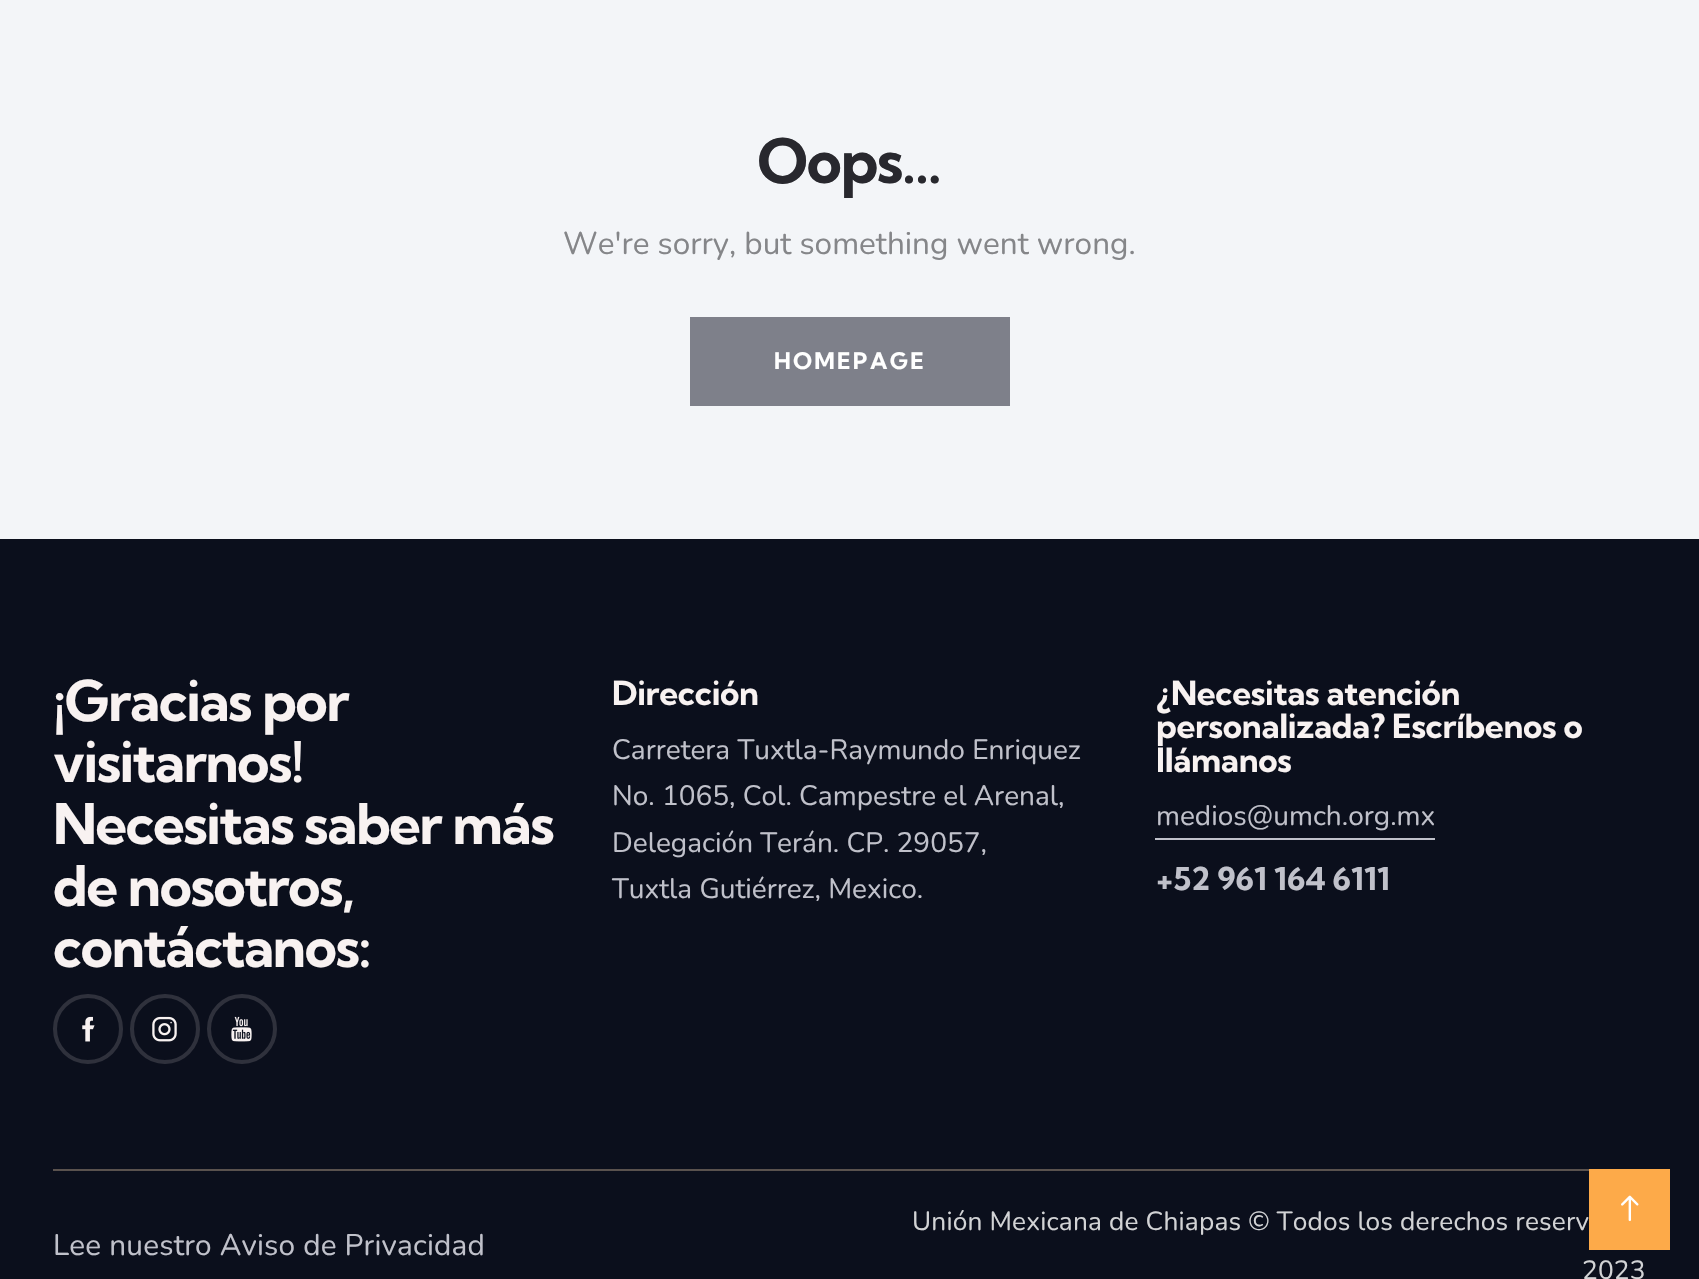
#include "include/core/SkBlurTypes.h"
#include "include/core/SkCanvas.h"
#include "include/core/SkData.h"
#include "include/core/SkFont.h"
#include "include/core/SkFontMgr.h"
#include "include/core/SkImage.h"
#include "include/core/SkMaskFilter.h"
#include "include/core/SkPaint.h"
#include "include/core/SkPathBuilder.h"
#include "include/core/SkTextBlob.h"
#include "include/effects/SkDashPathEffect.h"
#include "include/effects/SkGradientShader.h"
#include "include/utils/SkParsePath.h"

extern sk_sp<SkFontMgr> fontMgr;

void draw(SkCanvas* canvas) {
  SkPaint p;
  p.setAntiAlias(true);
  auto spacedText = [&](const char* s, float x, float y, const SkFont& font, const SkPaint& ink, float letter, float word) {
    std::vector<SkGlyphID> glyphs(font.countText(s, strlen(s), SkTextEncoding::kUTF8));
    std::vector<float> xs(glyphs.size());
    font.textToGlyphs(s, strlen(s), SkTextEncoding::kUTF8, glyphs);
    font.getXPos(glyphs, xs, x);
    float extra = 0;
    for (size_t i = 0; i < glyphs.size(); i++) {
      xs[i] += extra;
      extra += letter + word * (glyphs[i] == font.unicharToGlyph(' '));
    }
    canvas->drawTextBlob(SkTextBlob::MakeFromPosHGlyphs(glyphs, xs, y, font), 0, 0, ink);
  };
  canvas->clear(SkColorSetRGB(243, 245, 248));
  p.setColor(SkColorSetRGB(126, 128, 138));
  canvas->drawRect(SkRect::MakeLTRB(690, 317, 1010, 406), p);
  p.setColor(SkColorSetRGB(11, 15, 28));
  canvas->drawRect(SkRect::MakeLTRB(0, 539, 1699, 1279), p);
  p.setColor(SkColorSetRGB(192, 193, 202));
  canvas->drawRect(SkRect::MakeLTRB(1155, 838, 1435, 840), p);
  p.setStyle(SkPaint::kStroke_Style);
  p.setStrokeWidth(4);
  p.setColor(SkColorSetRGB(47, 49, 60));
  canvas->drawCircle(88, 1029, 33, p);
  canvas->drawImageRect(SkImages::DeferredFromEncodedData(SkData::MakeFromFileName("images/1.png")), SkRect::MakeLTRB(82, 1016, 95, 1042), SkSamplingOptions());
  canvas->drawCircle(165, 1029, 33, p);
  canvas->drawImageRect(SkImages::DeferredFromEncodedData(SkData::MakeFromFileName("images/2.png")), SkRect::MakeLTRB(152, 1016, 177, 1042), SkSamplingOptions());
  canvas->drawCircle(242, 1029, 33, p);
  canvas->drawImageRect(SkImages::DeferredFromEncodedData(SkData::MakeFromFileName("images/3.png")), SkRect::MakeLTRB(231, 1016, 252, 1042), SkSamplingOptions());
  p.setStyle(SkPaint::kFill_Style);
  p.setColor(SkColorSetRGB(90, 82, 78));
  canvas->drawRect(SkRect::MakeLTRB(53, 1169, 1589, 1171), p);
  p.setColor(SkColorSetRGB(253, 170, 73));
  canvas->drawRect(SkRect::MakeLTRB(1589, 1169, 1670, 1250), p);
  canvas->drawImageRect(SkImages::DeferredFromEncodedData(SkData::MakeFromFileName("images/4.png")), SkRect::MakeLTRB(1621, 1195, 1639, 1222), SkSamplingOptions());
  SkFont font1(fontMgr->matchFamilyStyle("Kumbh Sans", SkFontStyle::Bold()), 61);
  font1.setSubpixel(true);
  p.setColor(SkColorSetRGB(40, 40, 46));
  spacedText("Oops...", 757, 183, font1, p, -1.6f, 0);
  SkFont font2(fontMgr->matchFamilyStyle("Nunito", SkFontStyle::Normal()), 31.5f);
  font2.setSubpixel(true);
  p.setColor(SkColorSetRGB(133, 134, 137));
  canvas->drawString("We're sorry, but something went wrong.", 563, 254, font2, p);
  SkFont font3(fontMgr->matchFamilyStyle("Kumbh Sans", SkFontStyle::Bold()), 22.75f);
  font3.setSubpixel(true);
  p.setColor(SK_ColorWHITE);
  spacedText("HOMEPAGE", 774, 369, font3, p, 2.25f, 0);
  SkFont font4(fontMgr->matchFamilyStyle("Kumbh Sans", SkFontStyle::Bold()), 56);
  font4.setSubpixel(true);
  p.setColor(SkColorSetRGB(248, 242, 241));
  spacedText("¡Gracias por", 53, 721, font4, p, -1.6f, 0);
  spacedText("visitarnos!", 53, 782, font4, p, -1.6f, 0);
  spacedText("Necesitas saber más", 53, 844, font4, p, -1.6f, 0);
  spacedText("de nosotros,", 53, 906, font4, p, -1.6f, 0);
  spacedText("contáctanos:", 53, 967, font4, p, -1.6f, 0);
  SkFont font5(fontMgr->matchFamilyStyle("Kumbh Sans", SkFontStyle::Bold()), 33.25f);
  font5.setSubpixel(true);
  spacedText("Dirección", 612, 705, font5, p, -0.3f, 0);
  SkFont font6(fontMgr->matchFamilyStyle("Nunito", SkFontStyle::Normal()), 28);
  font6.setSubpixel(true);
  p.setColor(SkColorSetRGB(192, 193, 202));
  canvas->drawString("Carretera Tuxtla-Raymundo Enriquez", 612, 759, font6, p);
  canvas->drawString("No. 1065, Col. Campestre el Arenal,", 612, 805, font6, p);
  canvas->drawString("Delegación Terán. CP. 29057,", 612, 852, font6, p);
  canvas->drawString("Tuxtla Gutiérrez, Mexico.", 612, 898, font6, p);
  p.setColor(SkColorSetRGB(248, 242, 241));
  spacedText("¿Necesitas atención", 1156, 705, font5, p, -0.3f, 0);
  spacedText("personalizada? Escríbenos o", 1156, 738, font5, p, -0.3f, 0);
  spacedText("llámanos", 1156, 772, font5, p, -0.3f, 0);
  p.setColor(SkColorSetRGB(192, 193, 202));
  canvas->drawString("medios@umch.org.mx", 1156, 825, font6, p);
  SkFont font7(fontMgr->matchFamilyStyle("Kumbh Sans", SkFontStyle::Bold()), 31.5f);
  font7.setSubpixel(true);
  canvas->drawString("+52 961 164 6111", 1156, 890, font7, p);
  SkFont font8(fontMgr->matchFamilyStyle("Nunito", SkFontStyle::Normal()), 29.75f);
  font8.setSubpixel(true);
  spacedText("Lee nuestro Aviso de Privacidad", 53, 1255, font8, p, 0.18f, 0);
  SkFont font9(fontMgr->matchFamilyStyle("Nunito", SkFontStyle::Normal()), 26.25f);
  font9.setSubpixel(true);
  p.setColor(SkColorSetRGB(210, 211, 213));
  spacedText("Unión Mexicana de Chiapas © Todos los derechos reserv", 912, 1230, font9, p, 0.18f, 0);
  spacedText("2023", 1582, 1279, font9, p, 0.18f, 0);
}
